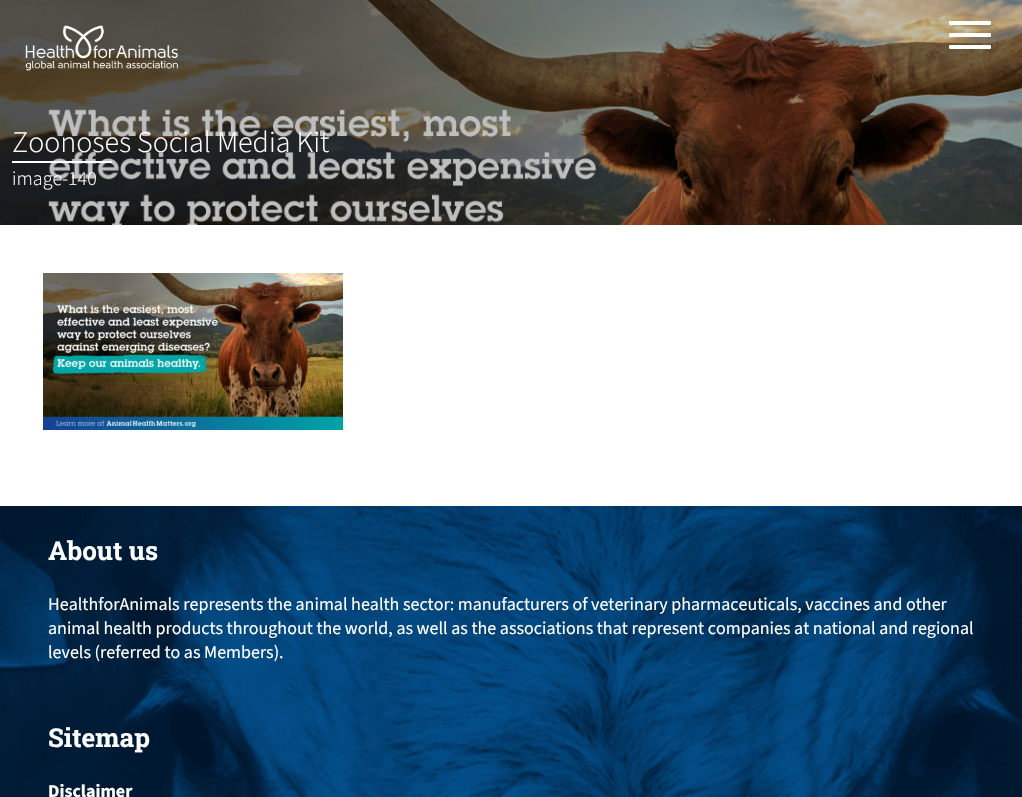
#include "include/core/SkBlurTypes.h"
#include "include/core/SkCanvas.h"
#include "include/core/SkData.h"
#include "include/core/SkFont.h"
#include "include/core/SkFontMgr.h"
#include "include/core/SkImage.h"
#include "include/core/SkMaskFilter.h"
#include "include/core/SkPaint.h"
#include "include/core/SkPathBuilder.h"
#include "include/core/SkTextBlob.h"
#include "include/effects/SkDashPathEffect.h"
#include "include/effects/SkGradientShader.h"
#include "include/utils/SkParsePath.h"

extern sk_sp<SkFontMgr> fontMgr;

void draw(SkCanvas* canvas) {
  SkPaint p;
  p.setAntiAlias(true);
  canvas->clear(SK_ColorWHITE);
  canvas->drawImageRect(SkImages::DeferredFromEncodedData(SkData::MakeFromFileName("images/2.png")), SkRect::MakeLTRB(0, 0, 1022, 225), SkSamplingOptions());
  canvas->drawImageRect(SkImages::DeferredFromEncodedData(SkData::MakeFromFileName("images/1.png")), SkRect::MakeLTRB(25, 25, 178, 71), SkSamplingOptions());
  p.setColor(SK_ColorWHITE);
  canvas->drawRoundRect(SkRect::MakeLTRB(949, 21, 991, 25), 1, 1, p);
  canvas->drawRoundRect(SkRect::MakeLTRB(949, 33, 991, 37), 1, 1, p);
  canvas->drawRoundRect(SkRect::MakeLTRB(949, 45, 991, 49), 1, 1, p);
  canvas->drawRect(SkRect::MakeLTRB(12, 161, 112, 163), p);
  canvas->drawImageRect(SkImages::DeferredFromEncodedData(SkData::MakeFromFileName("images/3.png")), SkRect::MakeLTRB(43, 273, 343, 430), SkSamplingOptions());
  canvas->drawImageRect(SkImages::DeferredFromEncodedData(SkData::MakeFromFileName("images/4.png")), SkRect::MakeLTRB(0, 506, 1022, 797), SkSamplingOptions());
  SkFont font1(fontMgr->matchFamilyStyle("Source Sans 3", SkFontStyle(300, SkFontStyle::kNormal_Width, SkFontStyle::kUpright_Slant)), 30);
  font1.setSubpixel(true);
  canvas->drawString("Zoonoses Social Media Kit", 12, 152, font1, p);
  SkFont font2(fontMgr->matchFamilyStyle("Source Sans 3", SkFontStyle(300, SkFontStyle::kNormal_Width, SkFontStyle::kUpright_Slant)), 20);
  font2.setSubpixel(true);
  canvas->drawString("image-140", 12, 185, font2, p);
  SkFont font3(fontMgr->matchFamilyStyle("Roboto Slab", SkFontStyle::Bold()), 26);
  font3.setSubpixel(true);
  canvas->drawString("About us", 48, 560, font3, p);
  SkFont font4(fontMgr->matchFamilyStyle("Source Sans 3", SkFontStyle::Normal()), 18);
  font4.setSubpixel(true);
  canvas->drawString("HealthforAnimals represents the animal health sector: manufacturers of veterinary pharmaceuticals, vaccines and other", 48, 610, font4, p);
  canvas->drawString("animal health products throughout the world, as well as the associations that represent companies at national and regional", 48, 634, font4, p);
  canvas->drawString("levels (referred to as Members).", 48, 658, font4, p);
  canvas->drawString("Sitemap", 48, 747, font3, p);
  SkFont font5(fontMgr->matchFamilyStyle("Source Sans 3", SkFontStyle::Bold()), 18);
  font5.setSubpixel(true);
  canvas->drawString("Disclaimer", 48, 797, font5, p);
}
